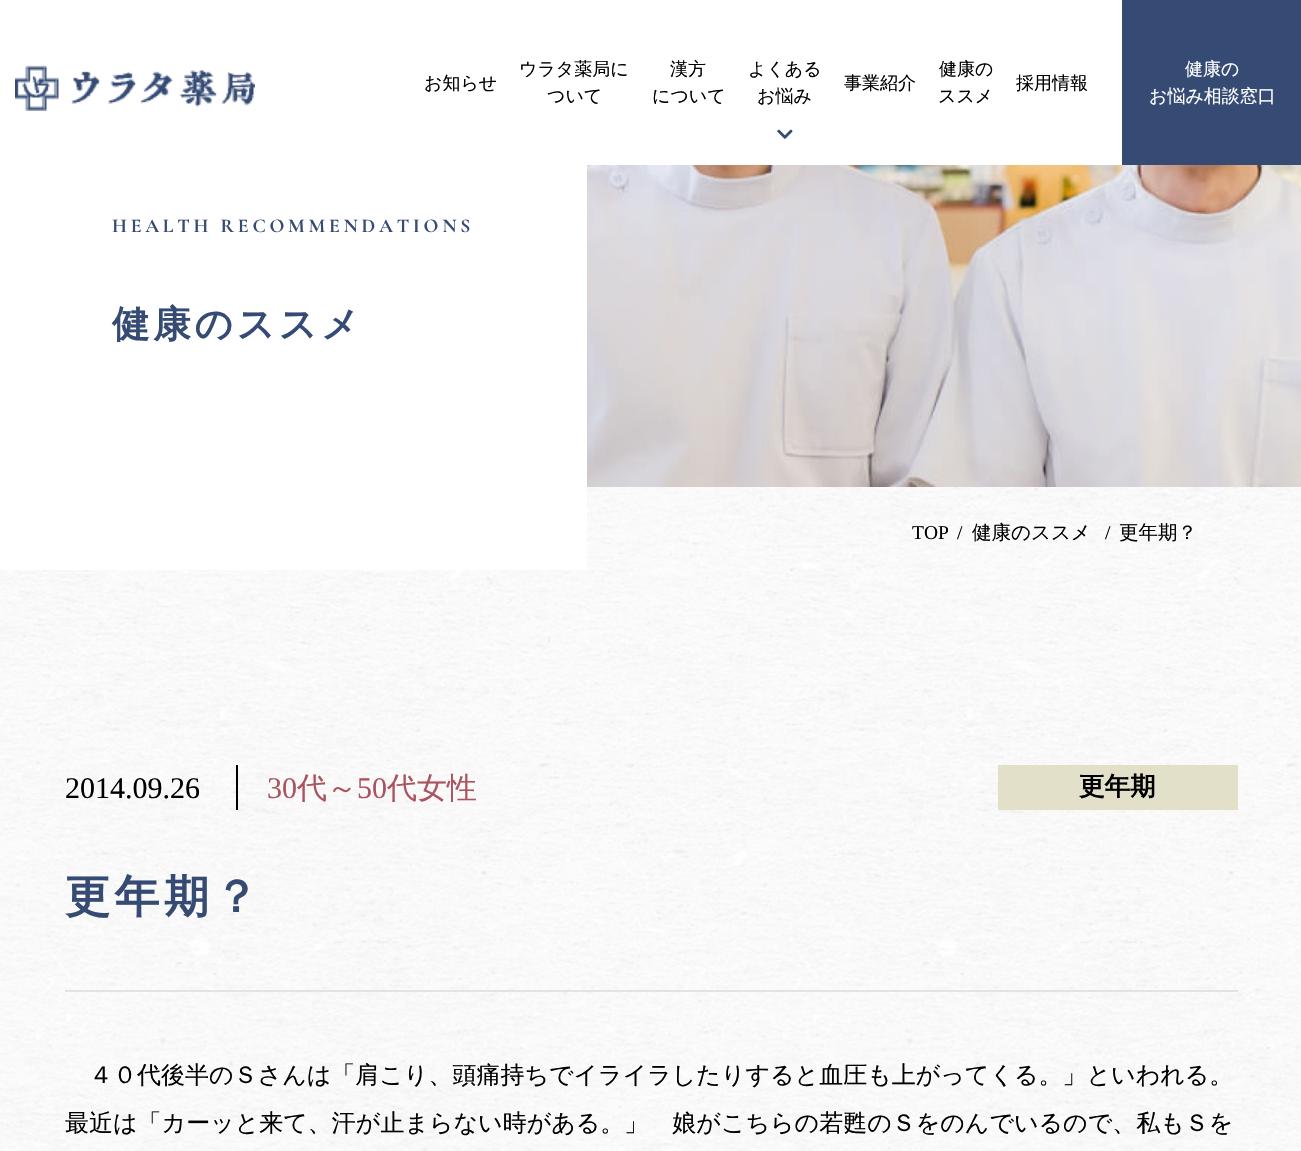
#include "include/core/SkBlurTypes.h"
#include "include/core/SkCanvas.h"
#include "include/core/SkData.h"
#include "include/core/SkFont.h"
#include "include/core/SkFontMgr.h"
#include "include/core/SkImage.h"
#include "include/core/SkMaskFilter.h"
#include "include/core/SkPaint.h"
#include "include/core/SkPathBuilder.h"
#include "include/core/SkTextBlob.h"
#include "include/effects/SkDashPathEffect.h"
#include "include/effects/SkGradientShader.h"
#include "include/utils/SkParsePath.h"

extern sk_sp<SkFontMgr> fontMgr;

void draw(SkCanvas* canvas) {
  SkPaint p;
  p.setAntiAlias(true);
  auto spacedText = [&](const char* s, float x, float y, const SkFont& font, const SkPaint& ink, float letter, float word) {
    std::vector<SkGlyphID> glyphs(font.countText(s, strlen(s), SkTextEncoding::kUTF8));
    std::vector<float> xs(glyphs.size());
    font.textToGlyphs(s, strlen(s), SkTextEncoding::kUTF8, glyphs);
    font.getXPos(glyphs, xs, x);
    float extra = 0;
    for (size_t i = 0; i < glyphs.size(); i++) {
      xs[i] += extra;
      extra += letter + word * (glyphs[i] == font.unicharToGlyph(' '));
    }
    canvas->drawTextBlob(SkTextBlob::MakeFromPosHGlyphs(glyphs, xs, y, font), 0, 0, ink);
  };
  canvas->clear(SK_ColorWHITE);
  canvas->drawImageRect(SkImages::DeferredFromEncodedData(SkData::MakeFromFileName("images/1.png")), SkRect::MakeLTRB(0, 487, 1301, 1151), SkSamplingOptions());
  canvas->drawImageRect(SkImages::DeferredFromEncodedData(SkData::MakeFromFileName("images/2.png")), SkRect::MakeLTRB(15, 65, 255, 111), SkSamplingOptions());
  canvas->drawImageRect(SkImages::DeferredFromEncodedData(SkData::MakeFromFileName("images/3.png")), SkRect::MakeLTRB(777, 129, 793, 139), SkSamplingOptions());
  p.setColor(SkColorSetRGB(53, 75, 116));
  canvas->drawRect(SkRect::MakeLTRB(1122, 0, 1301, 165), p);
  p.setColor(SK_ColorWHITE);
  canvas->drawRect(SkRect::MakeLTRB(0, 487, 587, 570), p);
  canvas->drawImageRect(SkImages::DeferredFromEncodedData(SkData::MakeFromFileName("images/4.png")), SkRect::MakeLTRB(587, 165, 1301, 487), SkSamplingOptions());
  p.setColor(SkColorSetRGB(227, 227, 227));
  canvas->drawRect(SkRect::MakeLTRB(65, 990, 1238, 992), p);
  p.setColor(SK_ColorBLACK);
  canvas->drawRect(SkRect::MakeLTRB(236, 765, 238, 810), p);
  p.setColor(SkColorSetRGB(227, 224, 202));
  canvas->drawRect(SkRect::MakeLTRB(998, 765, 1238, 810), p);
  SkFont font1(fontMgr->matchFamilyStyle("WenQuanYi Zen Hei", SkFontStyle(500, SkFontStyle::kNormal_Width, SkFontStyle::kUpright_Slant)), 18);
  font1.setSubpixel(true);
  p.setColor(SK_ColorBLACK);
  canvas->drawString("お知らせ", 424, 89, font1, p);
  canvas->drawString("ウラタ薬局に", 519, 75, font1, p);
  canvas->drawString("ついて", 547, 102, font1, p);
  canvas->drawString("漢方", 670, 75, font1, p);
  canvas->drawString("について", 652, 102, font1, p);
  canvas->drawString("よくある", 748, 75, font1, p);
  canvas->drawString("お悩み", 757, 102, font1, p);
  canvas->drawString("事業紹介", 844, 89, font1, p);
  canvas->drawString("健康の", 939, 75, font1, p);
  canvas->drawString("ススメ", 938, 102, font1, p);
  canvas->drawString("採用情報", 1016, 89, font1, p);
  p.setColor(SK_ColorWHITE);
  canvas->drawString("健康の", 1185, 75, font1, p);
  canvas->drawString("お悩み相談窓口", 1149, 102, font1, p);
  SkFont font2(fontMgr->matchFamilyStyle("Cormorant Garamond", SkFontStyle::Bold()), 19.5f);
  font2.setSubpixel(true);
  p.setColor(SkColorSetRGB(53, 75, 116));
  spacedText("HEALTH RECOMMENDATIONS", 112, 232, font2, p, 3.75f, 0);
  SkFont font3(fontMgr->matchFamilyStyle("WenQuanYi Zen Hei", SkFontStyle::Bold()), 37.5f);
  font3.setSubpixel(true);
  spacedText("健康のススメ", 112, 337, font3, p, 3.75f, 0);
  SkFont font4(fontMgr->matchFamilyStyle("Liberation Serif", SkFontStyle::Normal()), 19.5f);
  font4.setSubpixel(true);
  p.setColor(SK_ColorBLACK);
  canvas->drawString("TOP", 912, 539, font4, p);
  canvas->drawString("/", 957, 539, font4, p);
  SkFont font5(fontMgr->matchFamilyStyle("WenQuanYi Zen Hei", SkFontStyle(500, SkFontStyle::kNormal_Width, SkFontStyle::kUpright_Slant)), 19.5f);
  font5.setSubpixel(true);
  canvas->drawString("健康のススメ", 972, 539, font5, p);
  canvas->drawString("/", 1105, 539, font4, p);
  canvas->drawString("更年期？", 1119, 539, font5, p);
  SkFont font6(fontMgr->matchFamilyStyle("Liberation Serif", SkFontStyle::Normal()), 30);
  font6.setSubpixel(true);
  canvas->drawString("2014.09.26", 65, 798, font6, p);
  p.setColor(SkColorSetRGB(171, 83, 95));
  canvas->drawString("30", 267, 798, font6, p);
  SkFont font7(fontMgr->matchFamilyStyle("WenQuanYi Zen Hei", SkFontStyle(500, SkFontStyle::kNormal_Width, SkFontStyle::kUpright_Slant)), 30);
  font7.setSubpixel(true);
  canvas->drawString("代～", 297, 798, font7, p);
  canvas->drawString("50", 357, 798, font6, p);
  canvas->drawString("代女性", 387, 798, font7, p);
  SkFont font8(fontMgr->matchFamilyStyle("WenQuanYi Zen Hei", SkFontStyle::Bold()), 25.5f);
  font8.setSubpixel(true);
  p.setColor(SK_ColorBLACK);
  canvas->drawString("更年期", 1079, 795, font8, p);
  SkFont font9(fontMgr->matchFamilyStyle("WenQuanYi Zen Hei", SkFontStyle::Bold()), 45);
  font9.setSubpixel(true);
  p.setColor(SkColorSetRGB(53, 75, 116));
  spacedText("更年期？", 65, 912, font9, p, 4.5f, 0);
  SkFont font10(fontMgr->matchFamilyStyle("WenQuanYi Zen Hei", SkFontStyle(500, SkFontStyle::kNormal_Width, SkFontStyle::kUpright_Slant)), 24);
  font10.setSubpixel(true);
  p.setColor(SK_ColorBLACK);
  canvas->drawString("４０代後半のＳさんは「肩こり、頭痛持ちでイライラしたりすると血圧も上がってくる。」といわれる。", 89, 1083, font10, p);
  canvas->drawString("最近は「カーッと来て、汗が止まらない時がある。」　娘がこちらの若甦のＳをのんでいるので、私もＳを", 65, 1131, font10, p);
}
